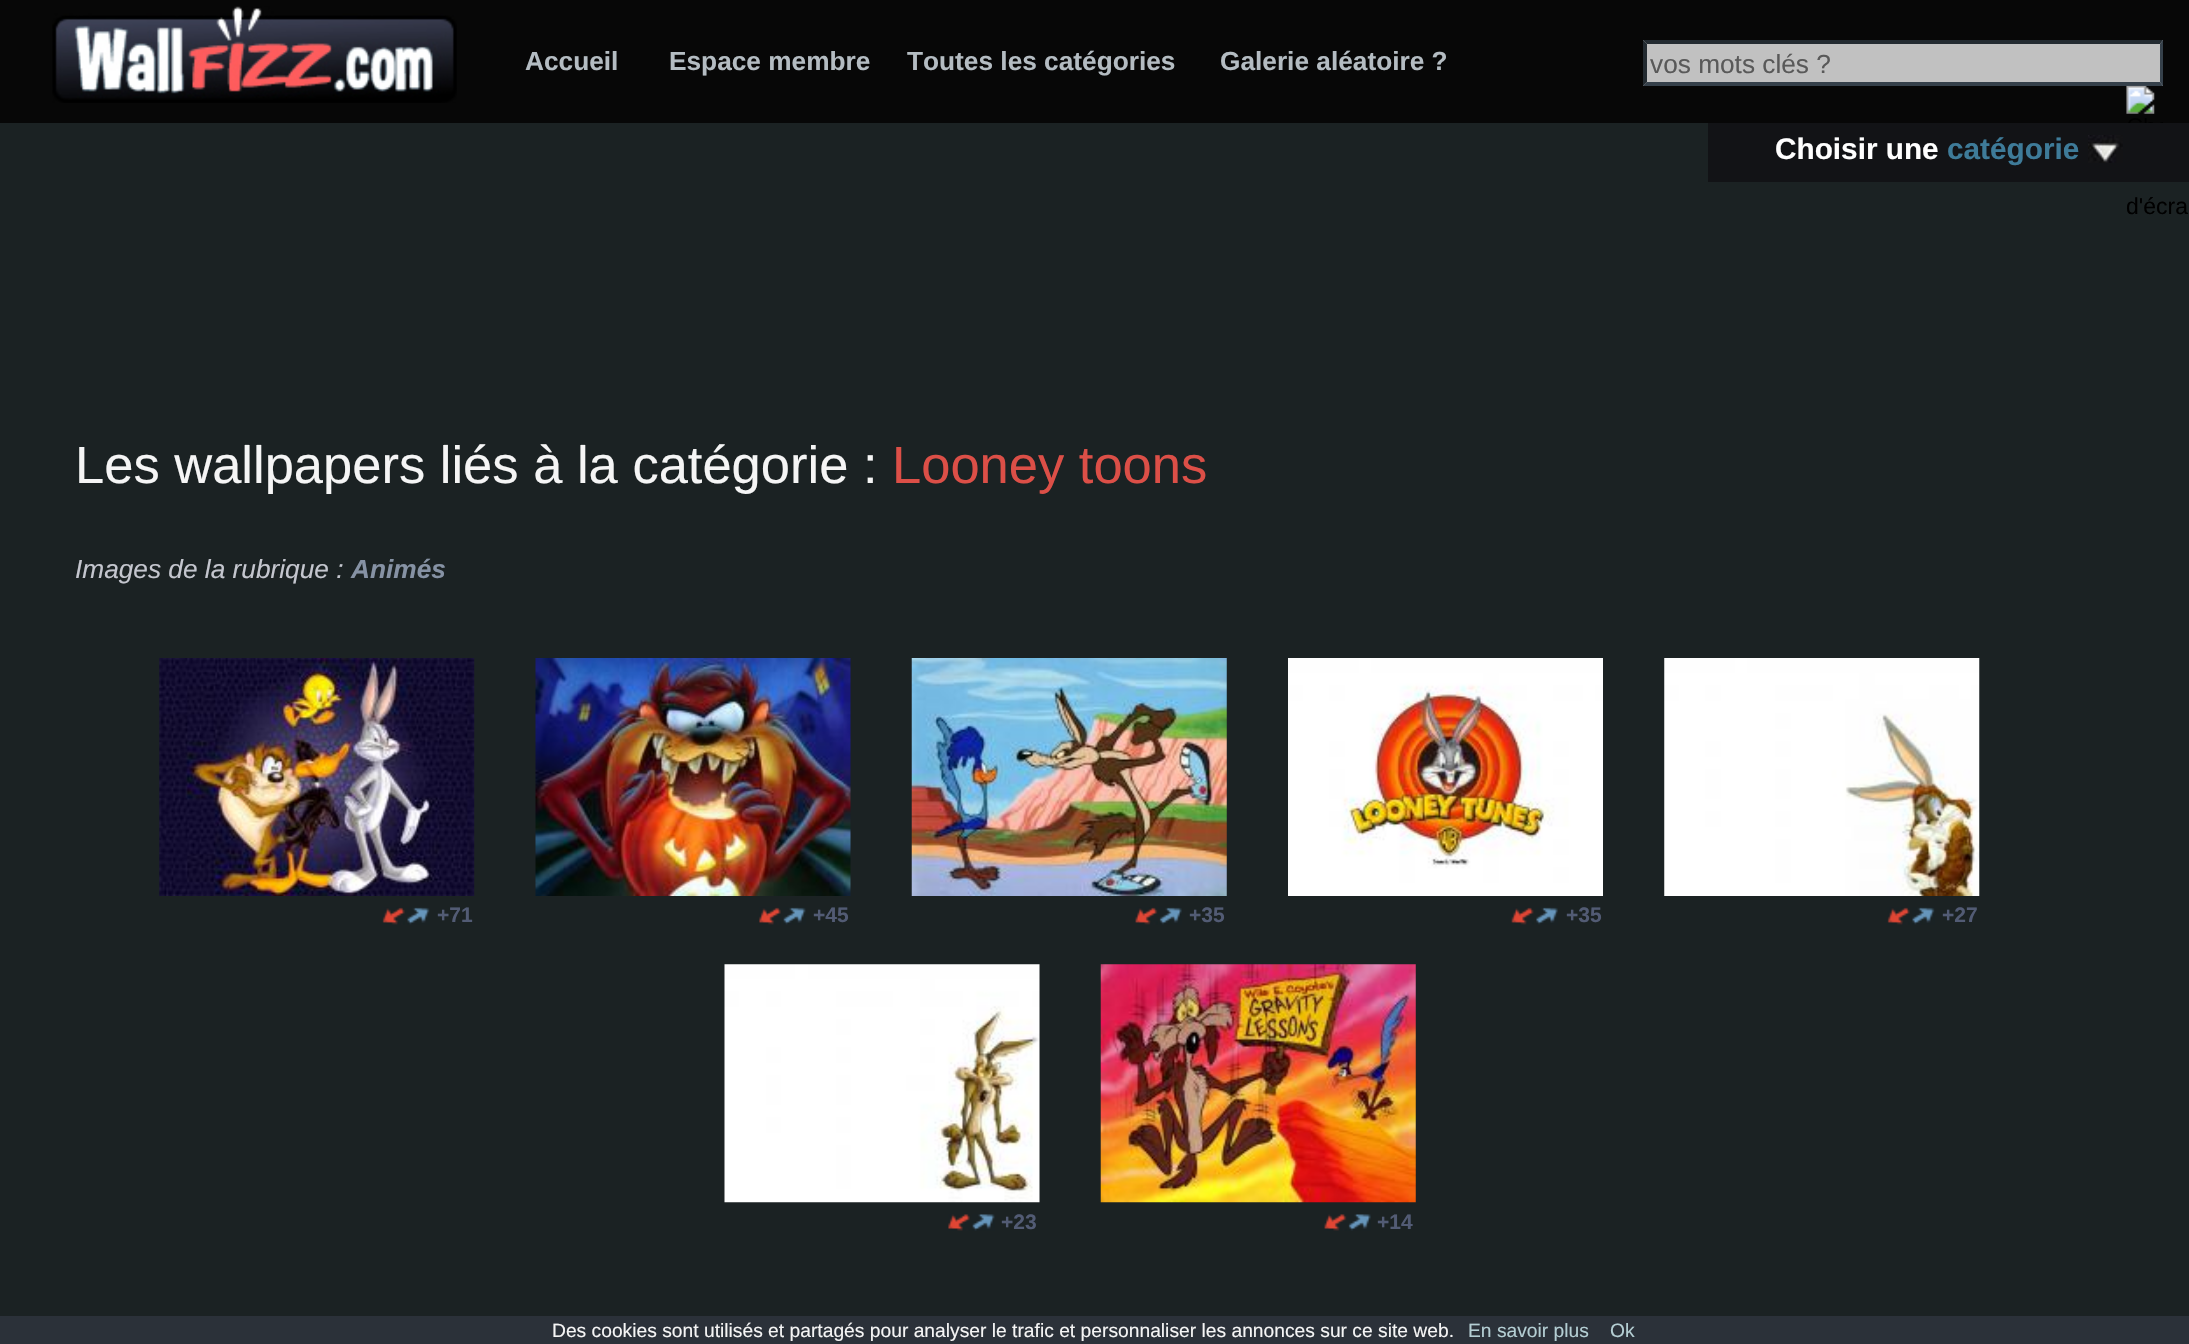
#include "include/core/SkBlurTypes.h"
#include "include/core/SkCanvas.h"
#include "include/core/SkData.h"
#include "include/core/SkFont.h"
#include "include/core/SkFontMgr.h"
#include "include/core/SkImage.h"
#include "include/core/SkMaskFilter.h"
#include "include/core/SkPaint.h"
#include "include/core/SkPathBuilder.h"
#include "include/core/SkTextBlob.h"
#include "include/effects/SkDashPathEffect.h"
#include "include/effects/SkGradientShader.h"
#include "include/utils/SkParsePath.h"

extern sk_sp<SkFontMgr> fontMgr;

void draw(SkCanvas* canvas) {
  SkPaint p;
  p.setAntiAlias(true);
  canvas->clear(SkColorSetRGB(27, 34, 35));
  p.setColor(SkColorSetRGB(7, 7, 7));
  canvas->drawRect(SkRect::MakeLTRB(0, 0, 2189, 123), p);
  canvas->drawImageRect(SkImages::DeferredFromEncodedData(SkData::MakeFromFileName("images/1.png")), SkRect::MakeLTRB(52, 6, 457, 103), SkSamplingOptions());
  p.setColor(SkColorSetRGB(193, 193, 193));
  canvas->drawRect(SkRect::MakeLTRB(1643, 40, 2163, 86), p);
  p.setColor(SkColorSetRGB(35, 43, 49));
  canvas->drawPath(SkPathBuilder().moveTo(1643, 40).lineTo(2163, 40).lineTo(2160, 44).lineTo(1647, 44).close().detach(), p);
  p.setColor(SkColorSetRGB(53, 64, 74));
  canvas->drawPath(SkPathBuilder().moveTo(2163, 40).lineTo(2163, 86).lineTo(2160, 82).lineTo(2160, 44).close().detach(), p);
  canvas->drawPath(SkPathBuilder().moveTo(2163, 86).lineTo(1643, 86).lineTo(1647, 82).lineTo(2160, 82).close().detach(), p);
  p.setColor(SkColorSetRGB(35, 43, 49));
  canvas->drawPath(SkPathBuilder().moveTo(1643, 86).lineTo(1643, 40).lineTo(1647, 44).lineTo(1647, 82).close().detach(), p);
  canvas->drawImageRect(SkImages::DeferredFromEncodedData(SkData::MakeFromFileName("images/2.png")), SkRect::MakeLTRB(2126, 85, 2163, 123), SkSamplingOptions());
  p.setColor(SkColorSetRGB(18, 19, 22));
  canvas->drawRect(SkRect::MakeLTRB(1708, 123, 2189, 182), p);
  canvas->drawImageRect(SkImages::DeferredFromEncodedData(SkData::MakeFromFileName("images/3.png")), SkRect::MakeLTRB(2088, 135, 2123, 163), SkSamplingOptions());
  canvas->drawImageRect(SkImages::DeferredFromEncodedData(SkData::MakeFromFileName("images/4.png")), SkRect::MakeLTRB(159, 658, 475, 896), SkSamplingOptions());
  canvas->drawImageRect(SkImages::DeferredFromEncodedData(SkData::MakeFromFileName("images/5.png")), SkRect::MakeLTRB(382, 907, 405, 925), SkSamplingOptions());
  canvas->drawImageRect(SkImages::DeferredFromEncodedData(SkData::MakeFromFileName("images/6.png")), SkRect::MakeLTRB(407, 907, 430, 925), SkSamplingOptions());
  canvas->drawImageRect(SkImages::DeferredFromEncodedData(SkData::MakeFromFileName("images/7.png")), SkRect::MakeLTRB(535, 658, 851, 896), SkSamplingOptions());
  canvas->drawImageRect(SkImages::DeferredFromEncodedData(SkData::MakeFromFileName("images/8.png")), SkRect::MakeLTRB(759, 907, 781, 925), SkSamplingOptions());
  canvas->drawImageRect(SkImages::DeferredFromEncodedData(SkData::MakeFromFileName("images/9.png")), SkRect::MakeLTRB(783, 907, 806, 925), SkSamplingOptions());
  canvas->drawImageRect(SkImages::DeferredFromEncodedData(SkData::MakeFromFileName("images/10.png")), SkRect::MakeLTRB(911, 658, 1227, 896), SkSamplingOptions());
  canvas->drawImageRect(SkImages::DeferredFromEncodedData(SkData::MakeFromFileName("images/11.png")), SkRect::MakeLTRB(1135, 907, 1158, 925), SkSamplingOptions());
  canvas->drawImageRect(SkImages::DeferredFromEncodedData(SkData::MakeFromFileName("images/12.png")), SkRect::MakeLTRB(1159, 907, 1182, 925), SkSamplingOptions());
  canvas->drawImageRect(SkImages::DeferredFromEncodedData(SkData::MakeFromFileName("images/13.png")), SkRect::MakeLTRB(1288, 658, 1603, 896), SkSamplingOptions());
  canvas->drawImageRect(SkImages::DeferredFromEncodedData(SkData::MakeFromFileName("images/14.png")), SkRect::MakeLTRB(1511, 907, 1534, 925), SkSamplingOptions());
  canvas->drawImageRect(SkImages::DeferredFromEncodedData(SkData::MakeFromFileName("images/15.png")), SkRect::MakeLTRB(1536, 907, 1558, 925), SkSamplingOptions());
  canvas->drawImageRect(SkImages::DeferredFromEncodedData(SkData::MakeFromFileName("images/16.png")), SkRect::MakeLTRB(1664, 658, 1980, 896), SkSamplingOptions());
  canvas->drawImageRect(SkImages::DeferredFromEncodedData(SkData::MakeFromFileName("images/5.png")), SkRect::MakeLTRB(1887, 907, 1910, 925), SkSamplingOptions());
  canvas->drawImageRect(SkImages::DeferredFromEncodedData(SkData::MakeFromFileName("images/17.png")), SkRect::MakeLTRB(1912, 907, 1935, 925), SkSamplingOptions());
  canvas->drawImageRect(SkImages::DeferredFromEncodedData(SkData::MakeFromFileName("images/18.png")), SkRect::MakeLTRB(724, 964, 1040, 1203), SkSamplingOptions());
  canvas->drawImageRect(SkImages::DeferredFromEncodedData(SkData::MakeFromFileName("images/19.png")), SkRect::MakeLTRB(948, 1214, 970, 1231), SkSamplingOptions());
  canvas->drawImageRect(SkImages::DeferredFromEncodedData(SkData::MakeFromFileName("images/20.png")), SkRect::MakeLTRB(972, 1214, 995, 1231), SkSamplingOptions());
  canvas->drawImageRect(SkImages::DeferredFromEncodedData(SkData::MakeFromFileName("images/21.png")), SkRect::MakeLTRB(1100, 964, 1416, 1203), SkSamplingOptions());
  canvas->drawImageRect(SkImages::DeferredFromEncodedData(SkData::MakeFromFileName("images/22.png")), SkRect::MakeLTRB(1324, 1214, 1347, 1231), SkSamplingOptions());
  canvas->drawImageRect(SkImages::DeferredFromEncodedData(SkData::MakeFromFileName("images/23.png")), SkRect::MakeLTRB(1348, 1214, 1371, 1231), SkSamplingOptions());
  p.setColor(SkColorSetRGB(43, 49, 57));
  canvas->drawRect(SkRect::MakeLTRB(0, 1316, 2189, 1344), p);
  SkFont font1(fontMgr->matchFamilyStyle("Liberation Sans", SkFontStyle::Bold()), 26.25f);
  font1.setSubpixel(true);
  p.setColor(SkColorSetRGB(180, 188, 194));
  canvas->drawString("Accueil", 525, 70, font1, p);
  canvas->drawString("Espace membre", 669, 70, font1, p);
  canvas->drawString("Toutes les catégories", 907, 70, font1, p);
  canvas->drawString("Galerie aléatoire ?", 1220, 70, font1, p);
  SkFont font2(fontMgr->matchFamilyStyle("Liberation Sans", SkFontStyle::Normal()), 26.25f);
  font2.setSubpixel(true);
  p.setColor(SkColorSetRGB(89, 89, 89));
  canvas->drawString("vos mots clés ?", 1650, 73, font2, p);
  SkFont font3(fontMgr->matchFamilyStyle("Liberation Sans", SkFontStyle::Normal()), 23);
  font3.setSubpixel(true);
  p.setColor(SK_ColorBLACK);
  canvas->drawString("d'écra", 2126, 214, font3, p);
  SkFont font4(fontMgr->matchFamilyStyle("Liberation Sans", SkFontStyle::Bold()), 29.75f);
  font4.setSubpixel(true);
  p.setColor(SK_ColorWHITE);
  canvas->drawString("Choisir une", 1775, 159, font4, p);
  p.setColor(SkColorSetRGB(62, 123, 153));
  canvas->drawString("catégorie", 1947, 159, font4, p);
  SkFont font5(fontMgr->matchFamilyStyle("Liberation Sans", SkFontStyle::Normal()), 52.5f);
  font5.setSubpixel(true);
  p.setColor(SkColorSetRGB(245, 245, 245));
  canvas->drawString("Les wallpapers liés à la catégorie :", 75, 483, font5, p);
  p.setColor(SkColorSetRGB(220, 79, 71));
  canvas->drawString("Looney toons", 892, 483, font5, p);
  SkFont font6(fontMgr->matchFamilyStyle("Liberation Sans", SkFontStyle::Italic()), 26.25f);
  font6.setSubpixel(true);
  p.setColor(SkColorSetRGB(196, 198, 206));
  canvas->drawString("Images de la rubrique :", 75, 578, font6, p);
  SkFont font7(fontMgr->matchFamilyStyle("Liberation Sans", SkFontStyle::BoldItalic()), 26.25f);
  font7.setSubpixel(true);
  p.setColor(SkColorSetRGB(134, 146, 164));
  canvas->drawString("Animés", 351, 578, font7, p);
  SkFont font8(fontMgr->matchFamilyStyle("Liberation Sans", SkFontStyle::Bold()), 21);
  font8.setSubpixel(true);
  p.setColor(SkColorSetRGB(82, 91, 116));
  canvas->drawString("+71", 437, 922, font8, p);
  canvas->drawString("+45", 813, 922, font8, p);
  canvas->drawString("+35", 1189, 922, font8, p);
  canvas->drawString("+35", 1566, 922, font8, p);
  canvas->drawString("+27", 1942, 922, font8, p);
  canvas->drawString("+23", 1001, 1229, font8, p);
  canvas->drawString("+14", 1377, 1229, font8, p);
  SkFont font9(fontMgr->matchFamilyStyle("Liberation Sans", SkFontStyle::Normal()), 19.25f);
  font9.setSubpixel(true);
  p.setColor(SkColorSetRGB(245, 245, 245));
  canvas->drawString("Des cookies sont utilisés et partagés pour analyser le trafic et personnaliser les annonces sur ce site web.", 552, 1337, font9, p);
  p.setColor(SkColorSetRGB(180, 206, 211));
  canvas->drawString("En savoir plus", 1468, 1337, font9, p);
  canvas->drawString("Ok", 1610, 1337, font9, p);
}
